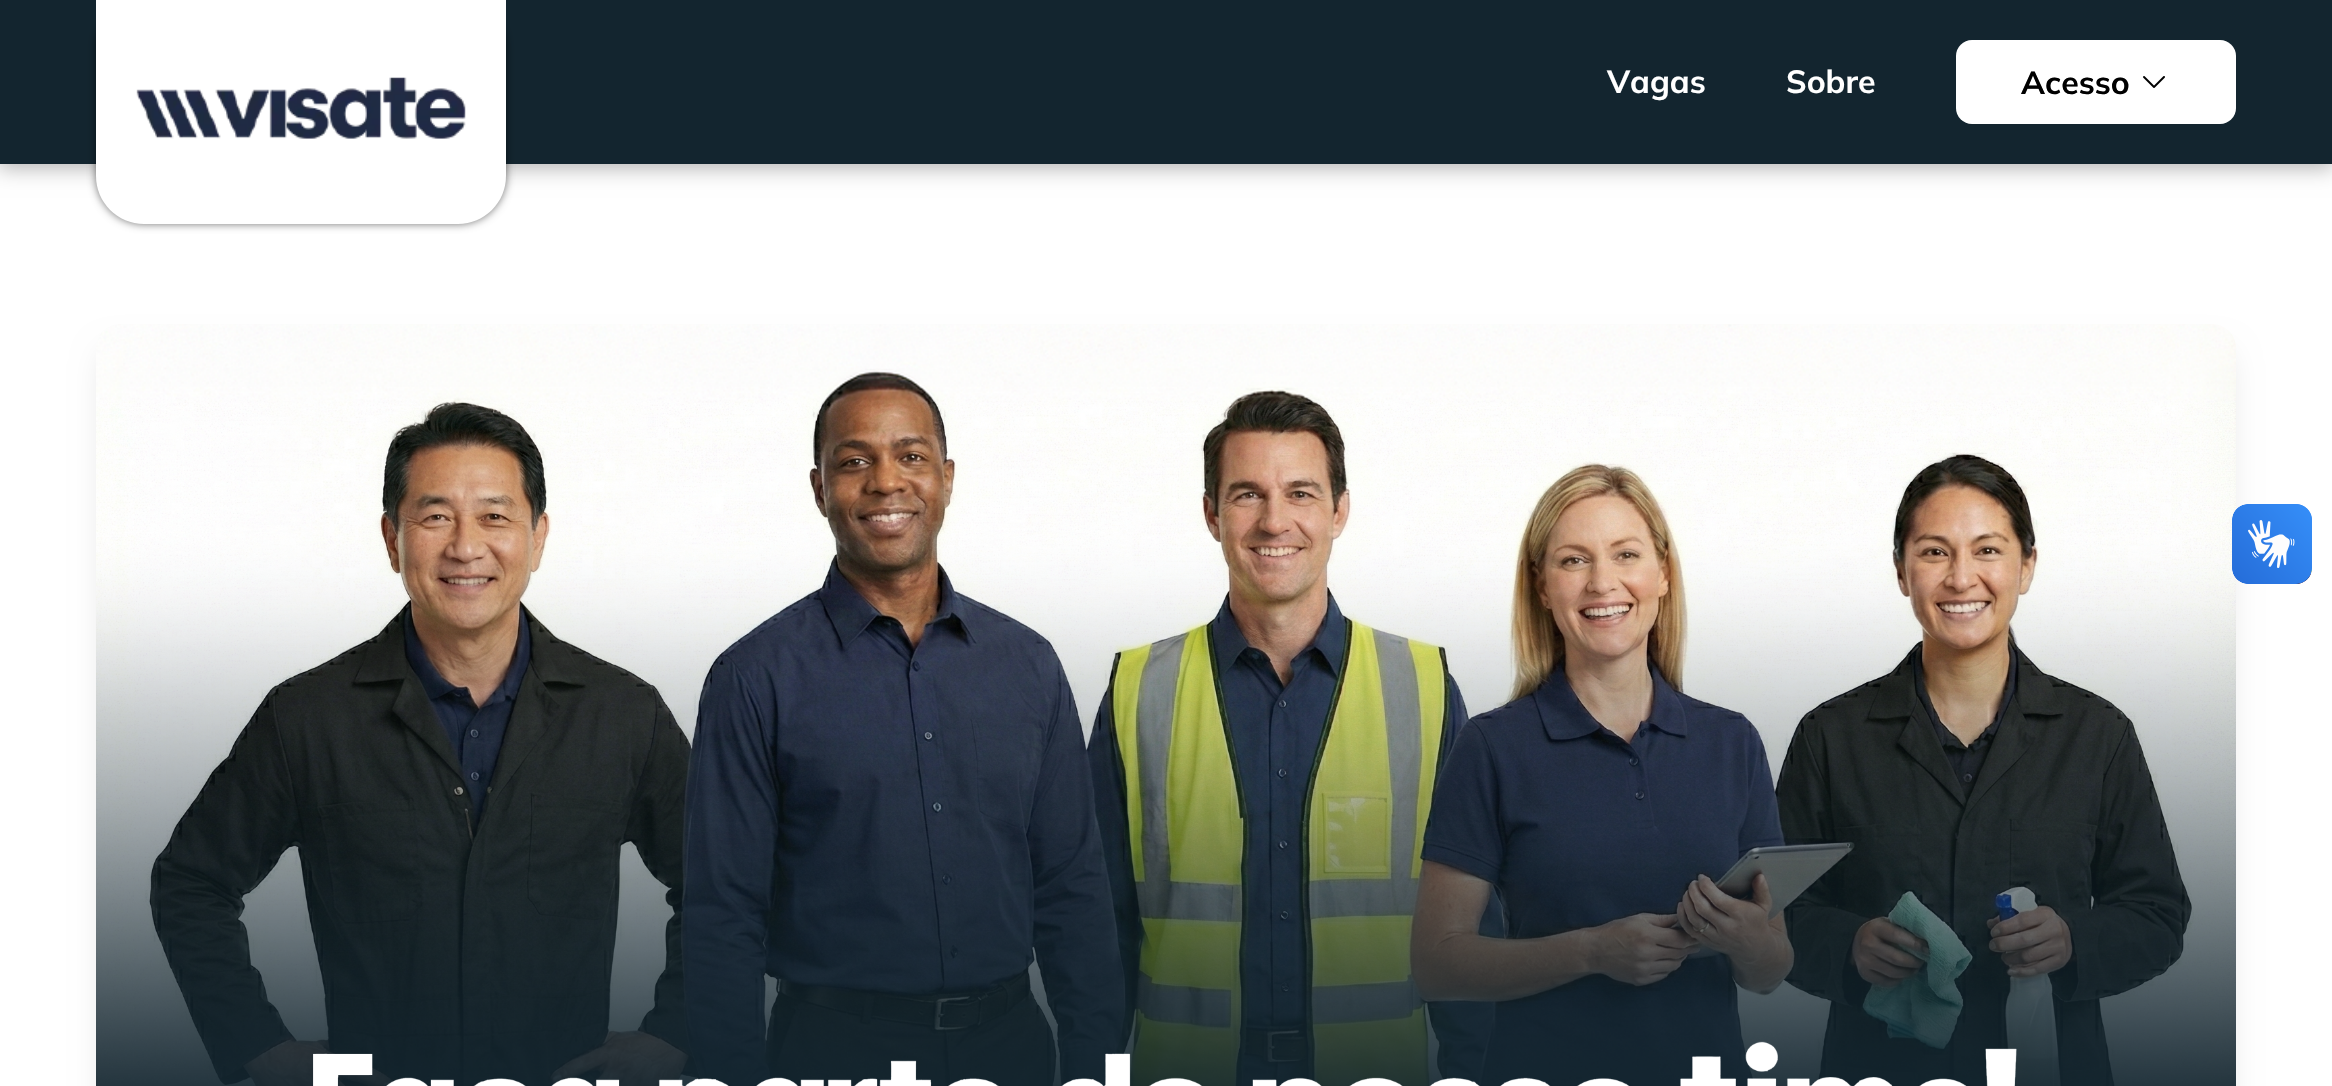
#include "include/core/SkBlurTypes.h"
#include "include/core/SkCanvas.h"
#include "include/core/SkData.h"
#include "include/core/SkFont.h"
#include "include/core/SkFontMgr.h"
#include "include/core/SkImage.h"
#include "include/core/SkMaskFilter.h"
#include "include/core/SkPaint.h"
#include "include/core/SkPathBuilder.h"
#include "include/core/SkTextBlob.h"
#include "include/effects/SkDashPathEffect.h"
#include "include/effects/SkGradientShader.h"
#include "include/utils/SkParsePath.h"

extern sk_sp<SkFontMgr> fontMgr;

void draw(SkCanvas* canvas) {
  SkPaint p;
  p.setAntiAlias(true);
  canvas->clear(SK_ColorWHITE);
  p.setColor(SkColorSetARGB(77, 0, 0, 0));
  p.setMaskFilter(SkMaskFilter::MakeBlur(kNormal_SkBlurStyle, 10));
  canvas->drawRect(SkRect::MakeLTRB(-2, 0, 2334, 168), p);
  p.setMaskFilter(nullptr);
  p.setColor(SkColorSetRGB(19, 37, 47));
  canvas->drawRect(SkRect::MakeLTRB(0, 0, 2332, 164), p);
  p.setColor(SkColorSetARGB(140, 0, 0, 0));
  p.setMaskFilter(SkMaskFilter::MakeBlur(kNormal_SkBlurStyle, 4));
  canvas->drawRoundRect(SkRect::MakeLTRB(96, 0, 506, 224), 48, 48, p);
  p.setMaskFilter(nullptr);
  p.setColor(SK_ColorWHITE);
  canvas->drawPath(SkPathBuilder().moveTo(96, 0).lineTo(506, 0).lineTo(506, 176).cubicTo(506, 202.5f, 484.5f, 224, 458, 224).lineTo(144, 224).cubicTo(117.5f, 224, 96, 202.5f, 96, 176).close().detach(), p);
  canvas->drawImageRect(SkImages::DeferredFromEncodedData(SkData::MakeFromFileName("images/1.png")), SkRect::MakeLTRB(136, 77, 466, 139), SkSamplingOptions());
  canvas->drawRoundRect(SkRect::MakeLTRB(1956, 40, 2236, 124), 16, 16, p);
  canvas->drawImageRect(SkImages::DeferredFromEncodedData(SkData::MakeFromFileName("images/2.png")), SkRect::MakeLTRB(2143, 76, 2165, 88), SkSamplingOptions());
  p.setColor(SkColorSetARGB(26, 0, 0, 0));
  p.setMaskFilter(SkMaskFilter::MakeBlur(kNormal_SkBlurStyle, 15));
  canvas->drawRoundRect(SkRect::MakeLTRB(102, 350, 2230, 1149), 18, 18, p);
  p.setMaskFilter(nullptr);
  canvas->drawImageRect(SkImages::DeferredFromEncodedData(SkData::MakeFromFileName("images/3.png")), SkRect::MakeLTRB(96, 324, 2236, 1086), SkSamplingOptions());
  canvas->drawImageRect(SkImages::DeferredFromEncodedData(SkData::MakeFromFileName("images/4.png")), SkRect::MakeLTRB(2232, 504, 2312, 584), SkSamplingOptions());
  canvas->drawImageRect(SkImages::DeferredFromEncodedData(SkData::MakeFromFileName("images/5.png")), SkRect::MakeLTRB(2232, 504, 2312, 584), SkSamplingOptions());
  SkFont font1(fontMgr->matchFamilyStyle("Mulish", SkFontStyle::Bold()), 32);
  font1.setSubpixel(true);
  p.setColor(SK_ColorWHITE);
  canvas->drawString("Vagas", 1607, 93, font1, p);
  canvas->drawString("Sobre", 1786, 93, font1, p);
  p.setColor(SK_ColorBLACK);
  canvas->drawString("Acesso", 2021, 94, font1, p);
}
